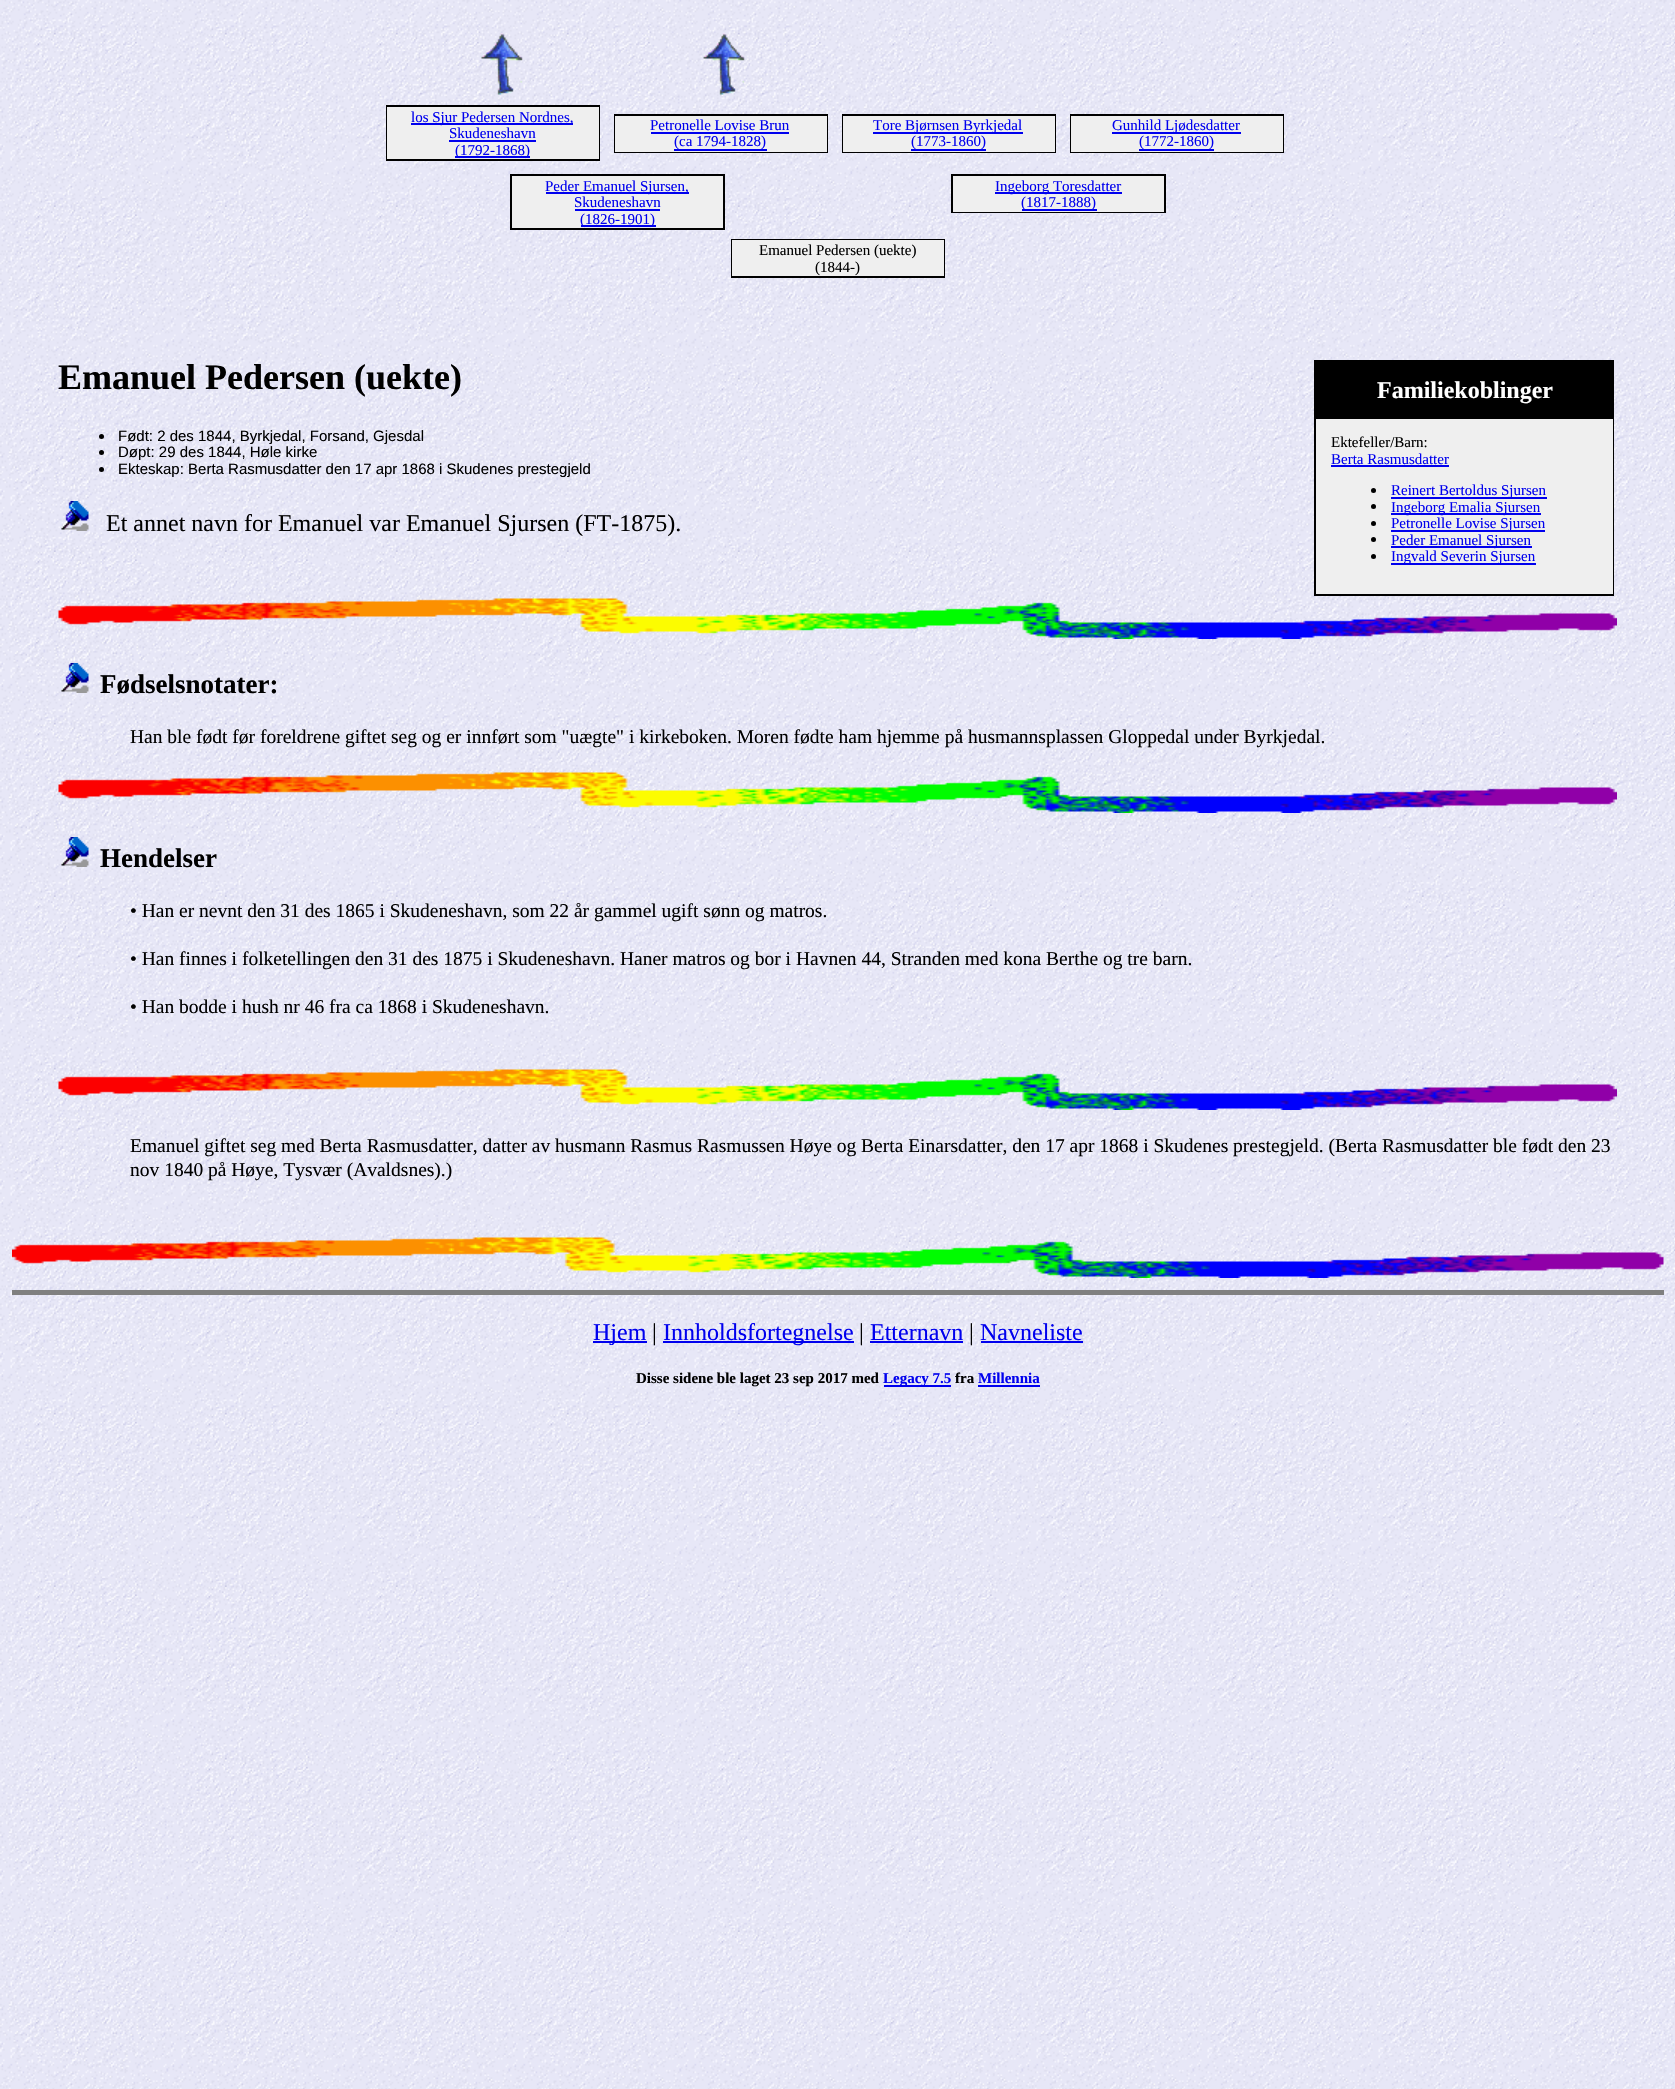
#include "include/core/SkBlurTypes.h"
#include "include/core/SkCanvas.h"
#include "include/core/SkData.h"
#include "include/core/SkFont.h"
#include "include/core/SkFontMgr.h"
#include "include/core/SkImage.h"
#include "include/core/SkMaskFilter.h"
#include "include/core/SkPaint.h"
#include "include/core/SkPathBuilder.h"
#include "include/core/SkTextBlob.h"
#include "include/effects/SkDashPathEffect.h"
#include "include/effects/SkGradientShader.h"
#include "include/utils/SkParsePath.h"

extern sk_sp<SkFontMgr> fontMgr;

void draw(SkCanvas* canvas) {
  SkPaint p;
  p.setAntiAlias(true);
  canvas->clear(SK_ColorWHITE);
  canvas->drawImageRect(SkImages::DeferredFromEncodedData(SkData::MakeFromFileName("images/1.png")), SkRect::MakeLTRB(0, 0, 1675, 2089), SkSamplingOptions());
  canvas->drawImageRect(SkImages::DeferredFromEncodedData(SkData::MakeFromFileName("images/2.png")), SkRect::MakeLTRB(481, 33, 523, 95), SkSamplingOptions());
  canvas->drawImageRect(SkImages::DeferredFromEncodedData(SkData::MakeFromFileName("images/3.png")), SkRect::MakeLTRB(703, 33, 745, 95), SkSamplingOptions());
  p.setColor(SK_ColorBLACK);
  canvas->drawRect(SkRect::MakeLTRB(386, 105, 600, 161), p);
  p.setColor(SkColorSetRGB(239, 239, 239));
  canvas->drawRect(SkRect::MakeLTRB(387, 107, 599, 159), p);
  p.setColor(SkColorSetRGB(0, 0, 238));
  canvas->drawRect(SkRect::MakeLTRB(411, 123, 573, 125), p);
  canvas->drawRect(SkRect::MakeLTRB(449, 140, 536, 142), p);
  canvas->drawRect(SkRect::MakeLTRB(455, 156, 530, 158), p);
  p.setColor(SK_ColorBLACK);
  canvas->drawRect(SkRect::MakeLTRB(614, 114, 828, 153), p);
  p.setColor(SkColorSetRGB(239, 239, 239));
  canvas->drawRect(SkRect::MakeLTRB(615, 116, 827, 152), p);
  p.setColor(SkColorSetRGB(0, 0, 238));
  canvas->drawRect(SkRect::MakeLTRB(651, 132, 789, 134), p);
  canvas->drawRect(SkRect::MakeLTRB(674, 149, 767, 151), p);
  p.setColor(SK_ColorBLACK);
  canvas->drawRect(SkRect::MakeLTRB(842, 114, 1056, 153), p);
  p.setColor(SkColorSetRGB(239, 239, 239));
  canvas->drawRect(SkRect::MakeLTRB(843, 116, 1055, 152), p);
  p.setColor(SkColorSetRGB(0, 0, 238));
  canvas->drawRect(SkRect::MakeLTRB(873, 132, 1023, 134), p);
  canvas->drawRect(SkRect::MakeLTRB(911, 149, 986, 151), p);
  p.setColor(SK_ColorBLACK);
  canvas->drawRect(SkRect::MakeLTRB(1070, 114, 1284, 153), p);
  p.setColor(SkColorSetRGB(239, 239, 239));
  canvas->drawRect(SkRect::MakeLTRB(1071, 116, 1283, 152), p);
  p.setColor(SkColorSetRGB(0, 0, 238));
  canvas->drawRect(SkRect::MakeLTRB(1112, 132, 1241, 134), p);
  canvas->drawRect(SkRect::MakeLTRB(1139, 149, 1214, 151), p);
  p.setColor(SK_ColorBLACK);
  canvas->drawRect(SkRect::MakeLTRB(510, 174, 725, 230), p);
  p.setColor(SkColorSetRGB(239, 239, 239));
  canvas->drawRect(SkRect::MakeLTRB(512, 176, 723, 228), p);
  p.setColor(SkColorSetRGB(0, 0, 238));
  canvas->drawRect(SkRect::MakeLTRB(546, 192, 689, 194), p);
  canvas->drawRect(SkRect::MakeLTRB(575, 209, 660, 211), p);
  canvas->drawRect(SkRect::MakeLTRB(581, 225, 656, 227), p);
  p.setColor(SK_ColorBLACK);
  canvas->drawRect(SkRect::MakeLTRB(951, 174, 1166, 213), p);
  p.setColor(SkColorSetRGB(239, 239, 239));
  canvas->drawRect(SkRect::MakeLTRB(953, 176, 1164, 212), p);
  p.setColor(SkColorSetRGB(0, 0, 238));
  canvas->drawRect(SkRect::MakeLTRB(995, 192, 1122, 194), p);
  canvas->drawRect(SkRect::MakeLTRB(1022, 209, 1097, 211), p);
  p.setColor(SK_ColorBLACK);
  canvas->drawRect(SkRect::MakeLTRB(731, 239, 945, 278), p);
  p.setColor(SkColorSetRGB(239, 239, 239));
  canvas->drawRect(SkRect::MakeLTRB(732, 240, 944, 276), p);
  p.setColor(SK_ColorBLACK);
  canvas->drawRect(SkRect::MakeLTRB(1314, 360, 1614, 596), p);
  p.setColor(SkColorSetRGB(239, 239, 239));
  canvas->drawRect(SkRect::MakeLTRB(1316, 419, 1613, 594), p);
  p.setColor(SkColorSetRGB(0, 0, 238));
  canvas->drawRect(SkRect::MakeLTRB(1331, 465, 1449, 467), p);
  p.setColor(SK_ColorBLACK);
  canvas->drawCircle(1373.5f, 490.5f, 2.5f, p);
  p.setColor(SkColorSetRGB(0, 0, 238));
  canvas->drawRect(SkRect::MakeLTRB(1391, 497, 1547, 499), p);
  p.setColor(SK_ColorBLACK);
  canvas->drawCircle(1373.5f, 506.5f, 2.5f, p);
  p.setColor(SkColorSetRGB(0, 0, 238));
  canvas->drawRect(SkRect::MakeLTRB(1391, 513, 1541, 515), p);
  p.setColor(SK_ColorBLACK);
  canvas->drawCircle(1373.5f, 523.5f, 2.5f, p);
  p.setColor(SkColorSetRGB(0, 0, 238));
  canvas->drawRect(SkRect::MakeLTRB(1391, 530, 1545, 532), p);
  p.setColor(SK_ColorBLACK);
  canvas->drawCircle(1373.5f, 539.5f, 2.5f, p);
  p.setColor(SkColorSetRGB(0, 0, 238));
  canvas->drawRect(SkRect::MakeLTRB(1391, 546, 1532, 548), p);
  p.setColor(SK_ColorBLACK);
  canvas->drawCircle(1373.5f, 556.5f, 2.5f, p);
  p.setColor(SkColorSetRGB(0, 0, 238));
  canvas->drawRect(SkRect::MakeLTRB(1391, 563, 1536, 565), p);
  p.setColor(SK_ColorBLACK);
  canvas->drawCircle(101.5f, 436.5f, 2.5f, p);
  canvas->drawCircle(101.5f, 452.5f, 2.5f, p);
  canvas->drawCircle(101.5f, 469.5f, 2.5f, p);
  canvas->drawImageRect(SkImages::DeferredFromEncodedData(SkData::MakeFromFileName("images/4.png")), SkRect::MakeLTRB(61, 501, 89, 531), SkSamplingOptions());
  canvas->drawImageRect(SkImages::DeferredFromEncodedData(SkData::MakeFromFileName("images/5.png")), SkRect::MakeLTRB(58, 598, 1617, 639), SkSamplingOptions());
  canvas->drawImageRect(SkImages::DeferredFromEncodedData(SkData::MakeFromFileName("images/6.png")), SkRect::MakeLTRB(61, 663, 89, 693), SkSamplingOptions());
  canvas->drawImageRect(SkImages::DeferredFromEncodedData(SkData::MakeFromFileName("images/7.png")), SkRect::MakeLTRB(58, 772, 1617, 813), SkSamplingOptions());
  canvas->drawImageRect(SkImages::DeferredFromEncodedData(SkData::MakeFromFileName("images/8.png")), SkRect::MakeLTRB(61, 837, 89, 867), SkSamplingOptions());
  canvas->drawImageRect(SkImages::DeferredFromEncodedData(SkData::MakeFromFileName("images/9.png")), SkRect::MakeLTRB(58, 1069, 1617, 1110), SkSamplingOptions());
  canvas->drawImageRect(SkImages::DeferredFromEncodedData(SkData::MakeFromFileName("images/10.png")), SkRect::MakeLTRB(12, 1237, 1664, 1278), SkSamplingOptions());
  p.setColor(SkColorSetRGB(128, 128, 128));
  canvas->drawRect(SkRect::MakeLTRB(12, 1290, 1664, 1295), p);
  p.setColor(SkColorSetRGB(0, 0, 238));
  canvas->drawRect(SkRect::MakeLTRB(593, 1341, 647, 1343), p);
  canvas->drawRect(SkRect::MakeLTRB(663, 1341, 854, 1343), p);
  canvas->drawRect(SkRect::MakeLTRB(870, 1341, 963, 1343), p);
  canvas->drawRect(SkRect::MakeLTRB(981, 1341, 1083, 1343), p);
  canvas->drawRect(SkRect::MakeLTRB(884, 1385, 951, 1387), p);
  canvas->drawRect(SkRect::MakeLTRB(978, 1385, 1040, 1387), p);
  SkFont font1(fontMgr->matchFamilyStyle("Liberation Serif", SkFontStyle::Normal()), 15);
  font1.setSubpixel(true);
  canvas->drawString("los Sjur Pedersen Nordnes,", 411, 122, font1, p);
  canvas->drawString("Skudeneshavn", 449, 138, font1, p);
  canvas->drawString("(1792-1868)", 455, 155, font1, p);
  canvas->drawString("Petronelle Lovise Brun", 650, 130, font1, p);
  canvas->drawString("(ca 1794-1828)", 674, 146, font1, p);
  canvas->drawString("Tore Bjørnsen Byrkjedal", 873, 130, font1, p);
  canvas->drawString("(1773-1860)", 911, 146, font1, p);
  canvas->drawString("Gunhild Ljødesdatter", 1112, 130, font1, p);
  canvas->drawString("(1772-1860)", 1139, 146, font1, p);
  canvas->drawString("Peder Emanuel Sjursen,", 545, 191, font1, p);
  canvas->drawString("Skudeneshavn", 574, 207, font1, p);
  canvas->drawString("(1826-1901)", 580, 224, font1, p);
  canvas->drawString("Ingeborg Toresdatter", 995, 191, font1, p);
  canvas->drawString("(1817-1888)", 1021, 207, font1, p);
  p.setColor(SK_ColorBLACK);
  canvas->drawString("Emanuel Pedersen (uekte)", 759, 255, font1, p);
  canvas->drawString("(1844-)", 815, 272, font1, p);
  SkFont font2(fontMgr->matchFamilyStyle("Liberation Serif", SkFontStyle::Bold()), 36);
  font2.setSubpixel(true);
  canvas->drawString("Emanuel Pedersen (uekte)", 58, 389, font2, p);
  SkFont font3(fontMgr->matchFamilyStyle("Liberation Serif", SkFontStyle::Bold()), 24);
  font3.setSubpixel(true);
  p.setColor(SK_ColorWHITE);
  canvas->drawString("Familiekoblinger", 1377, 398, font3, p);
  p.setColor(SK_ColorBLACK);
  canvas->drawString("Ektefeller/Barn:", 1331, 447, font1, p);
  p.setColor(SkColorSetRGB(0, 0, 238));
  canvas->drawString("Berta Rasmusdatter", 1331, 464, font1, p);
  canvas->drawString("Reinert Bertoldus Sjursen", 1391, 495, font1, p);
  canvas->drawString("Ingeborg Emalia Sjursen", 1391, 512, font1, p);
  canvas->drawString("Petronelle Lovise Sjursen", 1391, 528, font1, p);
  canvas->drawString("Peder Emanuel Sjursen", 1391, 545, font1, p);
  canvas->drawString("Ingvald Severin Sjursen", 1391, 561, font1, p);
  SkFont font4(fontMgr->matchFamilyStyle("Liberation Sans", SkFontStyle::Normal()), 15);
  font4.setSubpixel(true);
  p.setColor(SK_ColorBLACK);
  canvas->drawString("Født: 2 des 1844, Byrkjedal, Forsand, Gjesdal", 118, 441, font4, p);
  canvas->drawString("Døpt: 29 des 1844, Høle kirke", 118, 457, font4, p);
  canvas->drawString("Ekteskap: Berta Rasmusdatter den 17 apr 1868 i Skudenes prestegjeld", 118, 474, font4, p);
  SkFont font5(fontMgr->matchFamilyStyle("Liberation Serif", SkFontStyle::Normal()), 24);
  font5.setSubpixel(true);
  canvas->drawString("Et annet navn for Emanuel var Emanuel Sjursen (FT-1875).", 106, 531, font5, p);
  SkFont font6(fontMgr->matchFamilyStyle("Liberation Serif", SkFontStyle::Bold()), 27);
  font6.setSubpixel(true);
  canvas->drawString("Fødselsnotater:", 100, 693, font6, p);
  SkFont font7(fontMgr->matchFamilyStyle("Liberation Serif", SkFontStyle::Normal()), 19.5f);
  font7.setSubpixel(true);
  canvas->drawString("Han ble født før foreldrene giftet seg og er innført som \"uægte\" i kirkeboken. Moren fødte ham hjemme på husmannsplassen Gloppedal under Byrkjedal.", 130, 743, font7, p);
  canvas->drawString("Hendelser", 100, 867, font6, p);
  canvas->drawString("• Han er nevnt den 31 des 1865 i Skudeneshavn, som 22 år gammel ugift sønn og matros.", 130, 917, font7, p);
  canvas->drawString("• Han finnes i folketellingen den 31 des 1875 i Skudeneshavn. Haner matros og bor i Havnen 44, Stranden med kona Berthe og tre barn.", 130, 965, font7, p);
  canvas->drawString("• Han bodde i hush nr 46 fra ca 1868 i Skudeneshavn.", 130, 1013, font7, p);
  canvas->drawString("Emanuel giftet seg med Berta Rasmusdatter, datter av husmann Rasmus Rasmussen Høye og Berta Einarsdatter, den 17 apr 1868 i Skudenes prestegjeld. (Berta Rasmusdatter ble født den 23", 130, 1152, font7, p);
  canvas->drawString("nov 1840 på Høye, Tysvær (Avaldsnes).)", 130, 1176, font7, p);
  p.setColor(SkColorSetRGB(0, 0, 238));
  canvas->drawString("Hjem", 593, 1340, font5, p);
  p.setColor(SK_ColorBLACK);
  canvas->drawString("|", 652, 1340, font5, p);
  p.setColor(SkColorSetRGB(0, 0, 238));
  canvas->drawString("Innholdsfortegnelse", 663, 1340, font5, p);
  p.setColor(SK_ColorBLACK);
  canvas->drawString("|", 859, 1340, font5, p);
  p.setColor(SkColorSetRGB(0, 0, 238));
  canvas->drawString("Etternavn", 870, 1340, font5, p);
  p.setColor(SK_ColorBLACK);
  canvas->drawString("|", 969, 1340, font5, p);
  p.setColor(SkColorSetRGB(0, 0, 238));
  canvas->drawString("Navneliste", 980, 1340, font5, p);
  SkFont font8(fontMgr->matchFamilyStyle("Liberation Serif", SkFontStyle::Bold()), 15);
  font8.setSubpixel(true);
  p.setColor(SK_ColorBLACK);
  canvas->drawString("Disse sidene ble laget 23 sep 2017 med", 636, 1383, font8, p);
  p.setColor(SkColorSetRGB(0, 0, 238));
  canvas->drawString("Legacy 7.5", 883, 1383, font8, p);
  p.setColor(SK_ColorBLACK);
  canvas->drawString("fra", 955, 1383, font8, p);
  p.setColor(SkColorSetRGB(0, 0, 238));
  canvas->drawString("Millennia", 978, 1383, font8, p);
}
